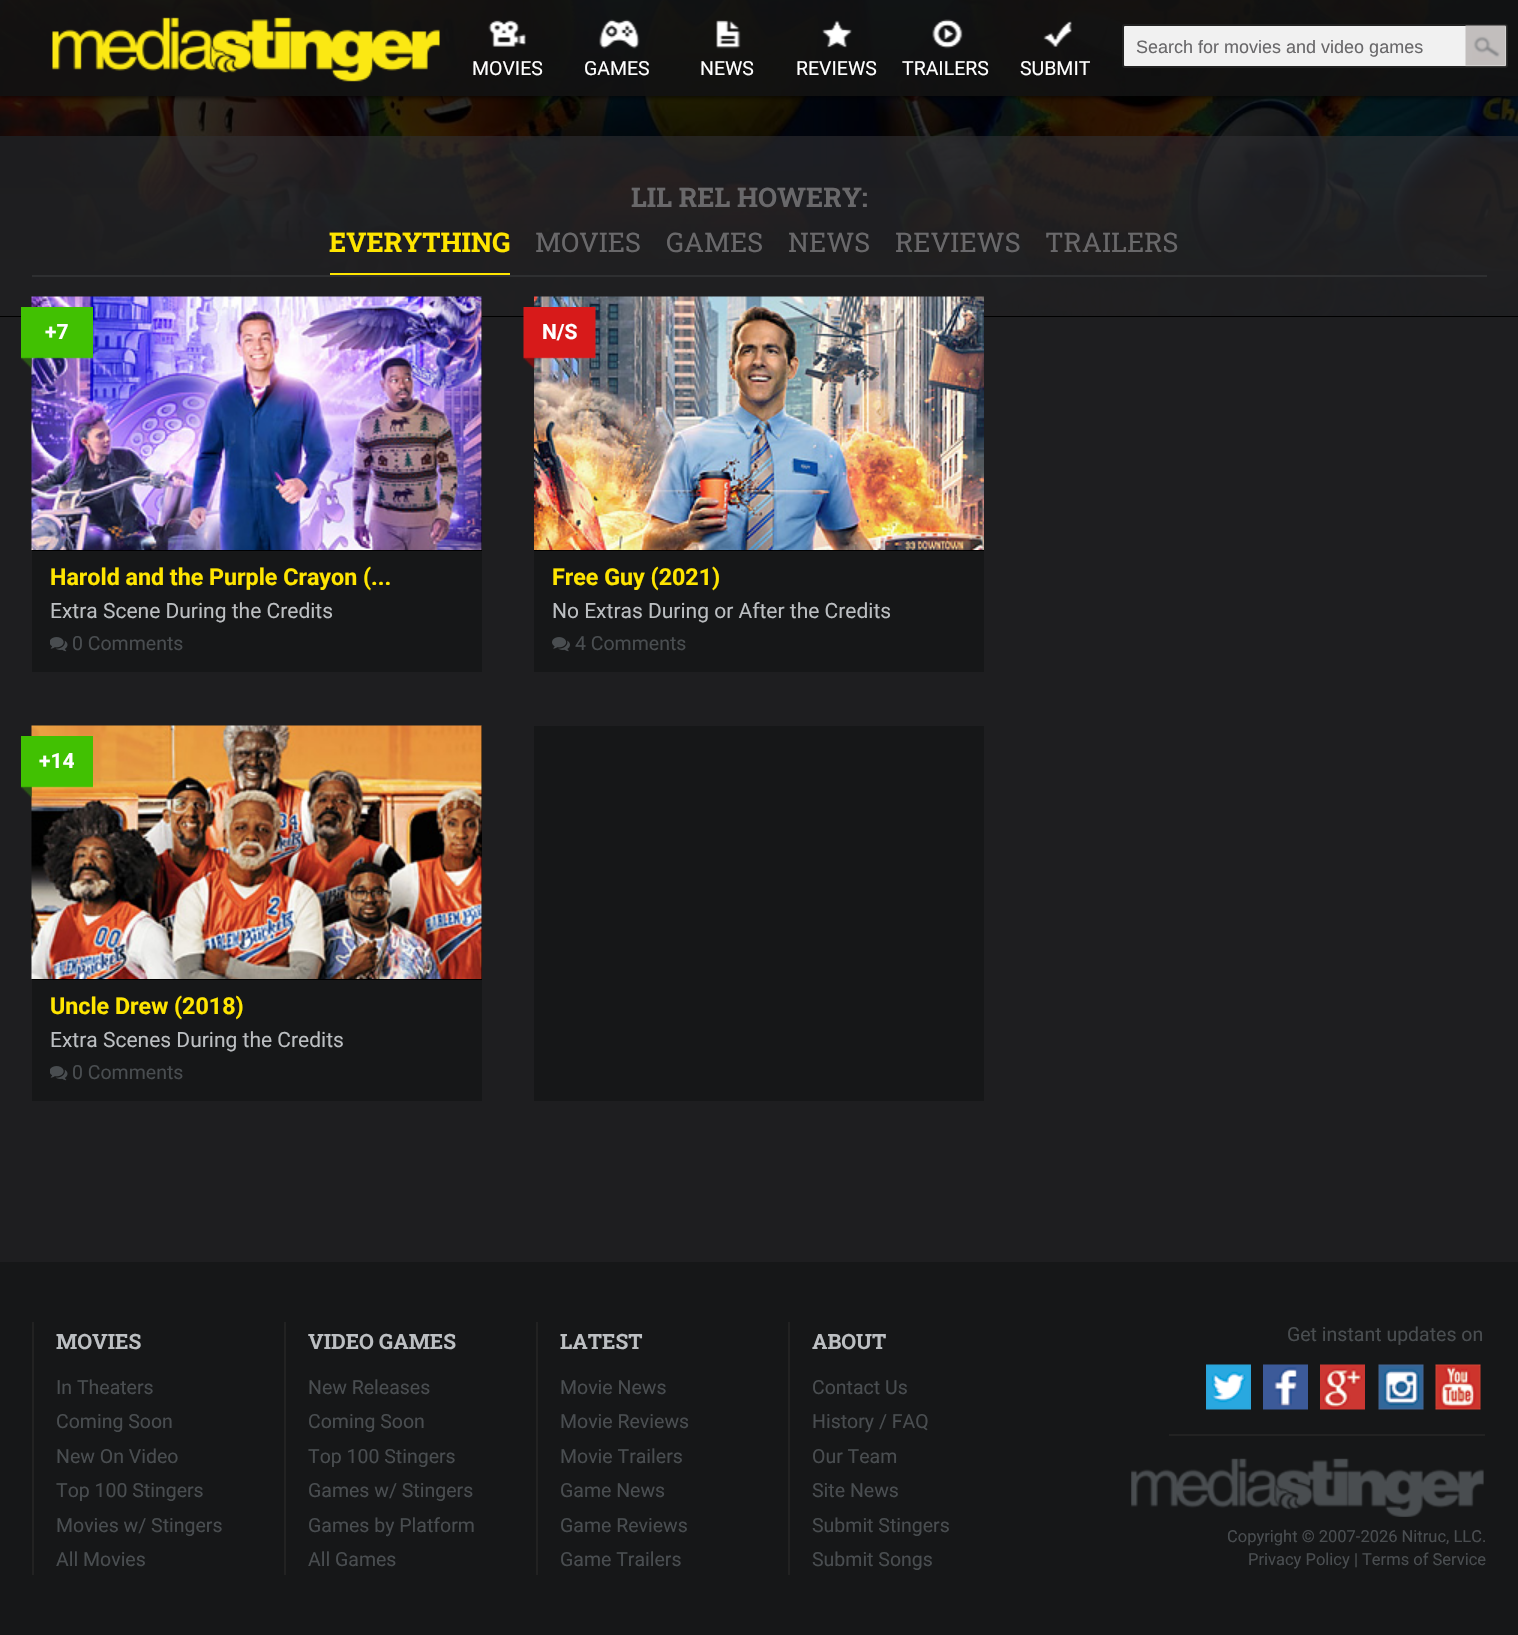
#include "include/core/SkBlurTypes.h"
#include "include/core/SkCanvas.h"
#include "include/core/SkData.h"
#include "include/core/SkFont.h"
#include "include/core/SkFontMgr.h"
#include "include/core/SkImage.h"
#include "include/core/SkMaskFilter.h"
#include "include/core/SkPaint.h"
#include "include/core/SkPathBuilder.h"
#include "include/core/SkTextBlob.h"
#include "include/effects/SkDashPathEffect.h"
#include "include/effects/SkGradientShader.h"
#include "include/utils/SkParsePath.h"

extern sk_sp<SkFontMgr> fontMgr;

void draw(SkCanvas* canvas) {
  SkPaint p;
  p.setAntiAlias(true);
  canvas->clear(SkColorSetRGB(30, 30, 32));
  p.setColor(SK_ColorBLACK);
  canvas->drawRect(SkRect::MakeLTRB(0, 316, 1518, 317), p);
  canvas->drawImageRect(SkImages::DeferredFromEncodedData(SkData::MakeFromFileName("images/1.png")), SkRect::MakeLTRB(0, 0, 1518, 316), SkSamplingOptions());
  canvas->drawImageRect(SkImages::DeferredFromEncodedData(SkData::MakeFromFileName("images/2.png")), SkRect::MakeLTRB(0, 0, 1518, 136), SkSamplingOptions());
  canvas->drawImageRect(SkImages::DeferredFromEncodedData(SkData::MakeFromFileName("images/3.png")), SkRect::MakeLTRB(0, 136, 148, 316), SkSamplingOptions());
  canvas->drawImageRect(SkImages::DeferredFromEncodedData(SkData::MakeFromFileName("images/4.png")), SkRect::MakeLTRB(0, 136, 1518, 316), SkSamplingOptions());
  canvas->save();
  canvas->clipRect(SkRect::MakeLTRB(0, 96, 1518, 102));
  p.setColor(SkColorSetARGB(140, 0, 0, 0));
  p.setMaskFilter(SkMaskFilter::MakeBlur(kNormal_SkBlurStyle, 2));
  canvas->drawRect(SkRect::MakeLTRB(0, 2, 1518, 98), p);
  p.setMaskFilter(nullptr);
  canvas->restore();
  p.setColor(SkColorSetARGB(242, 17, 17, 17));
  canvas->drawRect(SkRect::MakeLTRB(0, 0, 1518, 96), p);
  canvas->drawImageRect(SkImages::DeferredFromEncodedData(SkData::MakeFromFileName("images/5.png")), SkRect::MakeLTRB(52, 17, 440, 82), SkSamplingOptions());
  p.setColor(SkColorSetRGB(241, 241, 241));
  canvas->drawRoundRect(SkRect::MakeLTRB(1123, 25, 1507, 67), 2, 2, p);
  p.setStyle(SkPaint::kStroke_Style);
  p.setStrokeWidth(2);
  p.setColor(SkColorSetRGB(34, 34, 34));
  canvas->drawRoundRect(SkRect::MakeLTRB(1123, 25, 1507, 67), 2, 2, p);
  canvas->drawImageRect(SkImages::DeferredFromEncodedData(SkData::MakeFromFileName("images/6.png")), SkRect::MakeLTRB(1465, 25, 1507, 67), SkSamplingOptions());
  canvas->drawImageRect(SkImages::DeferredFromEncodedData(SkData::MakeFromFileName("images/7.png")), SkRect::MakeLTRB(488, 20, 526, 47), SkSamplingOptions());
  canvas->drawImageRect(SkImages::DeferredFromEncodedData(SkData::MakeFromFileName("images/8.png")), SkRect::MakeLTRB(599, 19, 640, 49), SkSamplingOptions());
  canvas->drawImageRect(SkImages::DeferredFromEncodedData(SkData::MakeFromFileName("images/9.png")), SkRect::MakeLTRB(716, 20, 741, 49), SkSamplingOptions());
  canvas->drawImageRect(SkImages::DeferredFromEncodedData(SkData::MakeFromFileName("images/10.png")), SkRect::MakeLTRB(822, 20, 852, 48), SkSamplingOptions());
  canvas->drawImageRect(SkImages::DeferredFromEncodedData(SkData::MakeFromFileName("images/11.png")), SkRect::MakeLTRB(932, 19, 963, 49), SkSamplingOptions());
  canvas->drawImageRect(SkImages::DeferredFromEncodedData(SkData::MakeFromFileName("images/12.png")), SkRect::MakeLTRB(1043, 21, 1072, 47), SkSamplingOptions());
  p.setStyle(SkPaint::kFill_Style);
  p.setColor(SkColorSetRGB(46, 47, 49));
  canvas->drawRect(SkRect::MakeLTRB(32, 275, 1487, 277), p);
  p.setColor(SkColorSetRGB(255, 229, 0));
  canvas->drawRect(SkRect::MakeLTRB(330, 273, 510, 275), p);
  p.setColor(SkColorSetRGB(22, 23, 24));
  canvas->drawRect(SkRect::MakeLTRB(32, 551, 482, 672), p);
  p.setColor(SK_ColorBLACK);
  canvas->drawRect(SkRect::MakeLTRB(32, 297, 482, 551), p);
  canvas->drawImageRect(SkImages::DeferredFromEncodedData(SkData::MakeFromFileName("images/13.png")), SkRect::MakeLTRB(31, 296, 482, 550), SkSamplingOptions());
  canvas->drawImageRect(SkImages::DeferredFromEncodedData(SkData::MakeFromFileName("images/14.png")), SkRect::MakeLTRB(21, 307, 93, 369), SkSamplingOptions());
  canvas->drawImageRect(SkImages::DeferredFromEncodedData(SkData::MakeFromFileName("images/15.png")), SkRect::MakeLTRB(50, 637, 68, 652), SkSamplingOptions());
  p.setColor(SkColorSetRGB(22, 23, 24));
  canvas->drawRect(SkRect::MakeLTRB(534, 551, 984, 672), p);
  canvas->drawImageRect(SkImages::DeferredFromEncodedData(SkData::MakeFromFileName("images/16.png")), SkRect::MakeLTRB(534, 296, 984, 550), SkSamplingOptions());
  canvas->drawImageRect(SkImages::DeferredFromEncodedData(SkData::MakeFromFileName("images/17.png")), SkRect::MakeLTRB(523, 307, 596, 369), SkSamplingOptions());
  p.setColor(SK_ColorBLACK);
  canvas->drawRect(SkRect::MakeLTRB(534, 550, 984, 551), p);
  canvas->drawImageRect(SkImages::DeferredFromEncodedData(SkData::MakeFromFileName("images/18.png")), SkRect::MakeLTRB(552, 637, 570, 652), SkSamplingOptions());
  p.setColor(SkColorSetRGB(22, 23, 24));
  canvas->drawRect(SkRect::MakeLTRB(32, 980, 482, 1101), p);
  p.setColor(SK_ColorBLACK);
  canvas->drawRect(SkRect::MakeLTRB(32, 726, 482, 980), p);
  canvas->drawImageRect(SkImages::DeferredFromEncodedData(SkData::MakeFromFileName("images/19.png")), SkRect::MakeLTRB(31, 725, 482, 979), SkSamplingOptions());
  canvas->drawImageRect(SkImages::DeferredFromEncodedData(SkData::MakeFromFileName("images/20.png")), SkRect::MakeLTRB(21, 736, 93, 798), SkSamplingOptions());
  canvas->drawImageRect(SkImages::DeferredFromEncodedData(SkData::MakeFromFileName("images/15.png")), SkRect::MakeLTRB(50, 1066, 68, 1081), SkSamplingOptions());
  p.setColor(SkColorSetRGB(22, 23, 24));
  canvas->drawRect(SkRect::MakeLTRB(534, 726, 984, 1101), p);
  canvas->drawRect(SkRect::MakeLTRB(0, 1262, 1518, 1635), p);
  p.setColor(SkColorSetRGB(34, 34, 34));
  canvas->drawRect(SkRect::MakeLTRB(32, 1322, 34, 1575), p);
  canvas->drawRect(SkRect::MakeLTRB(284, 1322, 286, 1575), p);
  canvas->drawRect(SkRect::MakeLTRB(536, 1322, 538, 1575), p);
  canvas->drawRect(SkRect::MakeLTRB(788, 1322, 790, 1575), p);
  canvas->drawRect(SkRect::MakeLTRB(1169, 1434, 1485, 1436), p);
  canvas->drawImageRect(SkImages::DeferredFromEncodedData(SkData::MakeFromFileName("images/21.png")), SkRect::MakeLTRB(1206, 1364, 1251, 1410), SkSamplingOptions());
  canvas->drawImageRect(SkImages::DeferredFromEncodedData(SkData::MakeFromFileName("images/22.png")), SkRect::MakeLTRB(1263, 1364, 1308, 1410), SkSamplingOptions());
  canvas->drawImageRect(SkImages::DeferredFromEncodedData(SkData::MakeFromFileName("images/23.png")), SkRect::MakeLTRB(1320, 1364, 1365, 1410), SkSamplingOptions());
  canvas->drawImageRect(SkImages::DeferredFromEncodedData(SkData::MakeFromFileName("images/24.png")), SkRect::MakeLTRB(1378, 1364, 1424, 1410), SkSamplingOptions());
  canvas->drawImageRect(SkImages::DeferredFromEncodedData(SkData::MakeFromFileName("images/25.png")), SkRect::MakeLTRB(1435, 1364, 1481, 1410), SkSamplingOptions());
  canvas->drawImageRect(SkImages::DeferredFromEncodedData(SkData::MakeFromFileName("images/26.png")), SkRect::MakeLTRB(1131, 1458, 1484, 1517), SkSamplingOptions());
  SkFont font1(fontMgr->matchFamilyStyle("Liberation Sans", SkFontStyle::Normal()), 18);
  font1.setSubpixel(true);
  p.setColor(SkColorSetRGB(105, 104, 106));
  canvas->drawString("Search for movies and video games", 1136, 53, font1, p);
  SkFont font2(fontMgr->matchFamilyStyle("Roboto", SkFontStyle::Normal()), 19.5f);
  font2.setSubpixel(true);
  p.setColor(SK_ColorWHITE);
  canvas->drawString("MOVIES", 472, 75, font2, p);
  canvas->drawString("GAMES", 584, 75, font2, p);
  canvas->drawString("NEWS", 700, 75, font2, p);
  canvas->drawString("REVIEWS", 796, 75, font2, p);
  canvas->drawString("TRAILERS", 902, 75, font2, p);
  canvas->drawString("SUBMIT", 1020, 75, font2, p);
  SkFont font3(fontMgr->matchFamilyStyle("Roboto Slab", SkFontStyle::Bold()), 27);
  font3.setSubpixel(true);
  p.setColor(SkColorSetRGB(105, 104, 106));
  canvas->drawString("LIL REL HOWERY:", 631, 207, font3, p);
  p.setColor(SkColorSetRGB(255, 229, 0));
  canvas->drawString("EVERYTHING", 329, 252, font3, p);
  SkFont font4(fontMgr->matchFamilyStyle("Roboto Slab", SkFontStyle::Normal()), 27);
  font4.setSubpixel(true);
  p.setColor(SkColorSetRGB(105, 104, 106));
  canvas->drawString("MOVIES", 535, 252, font4, p);
  canvas->drawString("GAMES", 666, 252, font4, p);
  canvas->drawString("NEWS", 788, 252, font4, p);
  canvas->drawString("REVIEWS", 895, 252, font4, p);
  canvas->drawString("TRAILERS", 1045, 252, font4, p);
  SkFont font5(fontMgr->matchFamilyStyle("Roboto", SkFontStyle::Bold()), 21);
  font5.setSubpixel(true);
  p.setColor(SK_ColorWHITE);
  canvas->drawString("+7", 45, 339, font5, p);
  SkFont font6(fontMgr->matchFamilyStyle("Roboto", SkFontStyle::Bold()), 23.25f);
  font6.setSubpixel(true);
  p.setColor(SkColorSetRGB(255, 229, 0));
  canvas->drawString("Harold and the Purple Crayon (...", 50, 585, font6, p);
  SkFont font7(fontMgr->matchFamilyStyle("Roboto", SkFontStyle::Normal()), 21);
  font7.setSubpixel(true);
  p.setColor(SkColorSetRGB(188, 191, 194));
  canvas->drawString("Extra Scene During the Credits", 50, 618, font7, p);
  p.setColor(SkColorSetRGB(73, 77, 80));
  canvas->drawString("0 Comments", 72, 650, font2, p);
  p.setColor(SK_ColorWHITE);
  canvas->drawString("N/S", 542, 339, font5, p);
  p.setColor(SkColorSetRGB(255, 229, 0));
  canvas->drawString("Free Guy (2021)", 552, 585, font6, p);
  p.setColor(SkColorSetRGB(188, 191, 194));
  canvas->drawString("No Extras During or After the Credits", 552, 618, font7, p);
  p.setColor(SkColorSetRGB(73, 77, 80));
  canvas->drawString("4 Comments", 575, 650, font2, p);
  p.setColor(SK_ColorWHITE);
  canvas->drawString("+14", 39, 768, font5, p);
  p.setColor(SkColorSetRGB(255, 229, 0));
  canvas->drawString("Uncle Drew (2018)", 50, 1014, font6, p);
  p.setColor(SkColorSetRGB(188, 191, 194));
  canvas->drawString("Extra Scenes During the Credits", 50, 1047, font7, p);
  p.setColor(SkColorSetRGB(73, 77, 80));
  canvas->drawString("0 Comments", 72, 1079, font2, p);
  SkFont font8(fontMgr->matchFamilyStyle("Roboto Slab", SkFontStyle::Bold()), 21);
  font8.setSubpixel(true);
  p.setColor(SkColorSetRGB(188, 191, 194));
  canvas->drawString("MOVIES", 56, 1349, font8, p);
  p.setColor(SkColorSetRGB(73, 77, 80));
  canvas->drawString("In Theaters", 56, 1394, font2, p);
  canvas->drawString("Coming Soon", 56, 1428, font2, p);
  canvas->drawString("New On Video", 56, 1463, font2, p);
  canvas->drawString("Top 100 Stingers", 56, 1497, font2, p);
  canvas->drawString("Movies w/ Stingers", 56, 1532, font2, p);
  canvas->drawString("All Movies", 56, 1566, font2, p);
  p.setColor(SkColorSetRGB(188, 191, 194));
  canvas->drawString("VIDEO GAMES", 308, 1349, font8, p);
  p.setColor(SkColorSetRGB(73, 77, 80));
  canvas->drawString("New Releases", 308, 1394, font2, p);
  canvas->drawString("Coming Soon", 308, 1428, font2, p);
  canvas->drawString("Top 100 Stingers", 308, 1463, font2, p);
  canvas->drawString("Games w/ Stingers", 308, 1497, font2, p);
  canvas->drawString("Games by Platform", 308, 1532, font2, p);
  canvas->drawString("All Games", 308, 1566, font2, p);
  p.setColor(SkColorSetRGB(188, 191, 194));
  canvas->drawString("LATEST", 560, 1349, font8, p);
  p.setColor(SkColorSetRGB(73, 77, 80));
  canvas->drawString("Movie News", 560, 1394, font2, p);
  canvas->drawString("Movie Reviews", 560, 1428, font2, p);
  canvas->drawString("Movie Trailers", 560, 1463, font2, p);
  canvas->drawString("Game News", 560, 1497, font2, p);
  canvas->drawString("Game Reviews", 560, 1532, font2, p);
  canvas->drawString("Game Trailers", 560, 1566, font2, p);
  p.setColor(SkColorSetRGB(188, 191, 194));
  canvas->drawString("ABOUT", 812, 1349, font8, p);
  p.setColor(SkColorSetRGB(73, 77, 80));
  canvas->drawString("Contact Us", 812, 1394, font2, p);
  canvas->drawString("History / FAQ", 812, 1428, font2, p);
  canvas->drawString("Our Team", 812, 1463, font2, p);
  canvas->drawString("Site News", 812, 1497, font2, p);
  canvas->drawString("Submit Stingers", 812, 1532, font2, p);
  canvas->drawString("Submit Songs", 812, 1566, font2, p);
  canvas->drawString("Get instant updates on", 1287, 1341, font2, p);
  SkFont font9(fontMgr->matchFamilyStyle("Roboto", SkFontStyle::Normal()), 16.5f);
  font9.setSubpixel(true);
  canvas->drawString("Copyright © 2007-2026 Nitruc, LLC.", 1227, 1542, font9, p);
  canvas->drawString("Privacy Policy | Terms of Service", 1248, 1565, font9, p);
}
